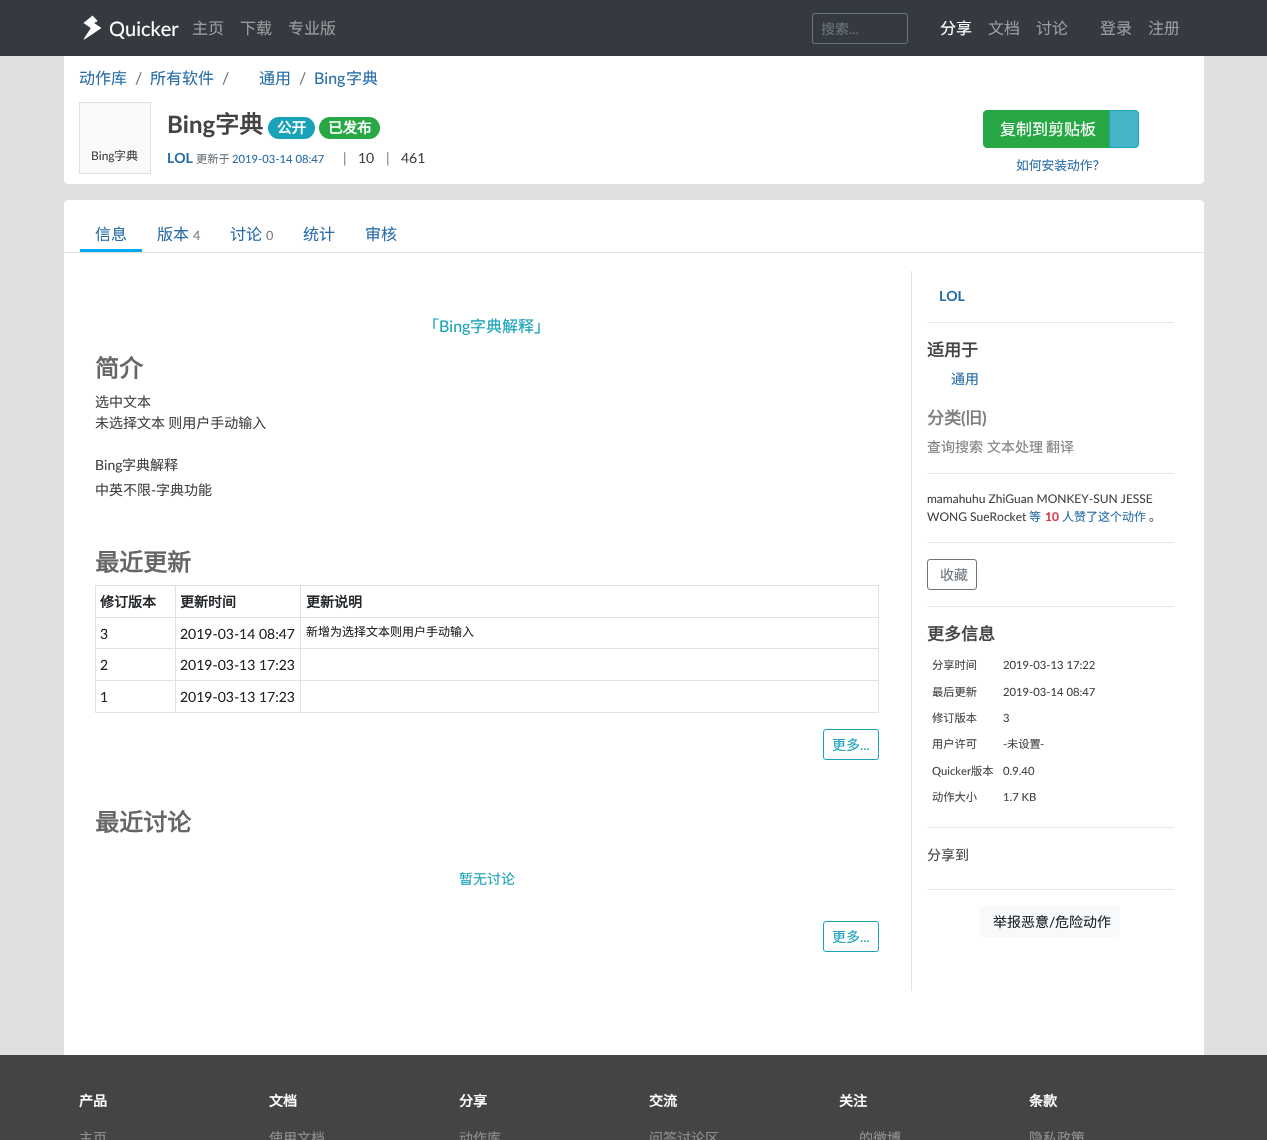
#include "include/core/SkBlurTypes.h"
#include "include/core/SkCanvas.h"
#include "include/core/SkData.h"
#include "include/core/SkFont.h"
#include "include/core/SkFontMgr.h"
#include "include/core/SkImage.h"
#include "include/core/SkMaskFilter.h"
#include "include/core/SkPaint.h"
#include "include/core/SkPathBuilder.h"
#include "include/core/SkTextBlob.h"
#include "include/effects/SkDashPathEffect.h"
#include "include/effects/SkGradientShader.h"
#include "include/utils/SkParsePath.h"

extern sk_sp<SkFontMgr> fontMgr;

void draw(SkCanvas* canvas) {
  SkPaint p;
  p.setAntiAlias(true);
  canvas->clear(SkColorSetRGB(224, 224, 224));
  p.setColor(SK_ColorWHITE);
  canvas->drawPath(SkPathBuilder().moveTo(64, 54).lineTo(1204, 54).lineTo(1204, 180).cubicTo(1204, 182, 1202, 184, 1200, 184).lineTo(68, 184).cubicTo(66, 184, 64, 182, 64, 180).close().detach(), p);
  p.setColor(SkColorSetRGB(52, 58, 64));
  canvas->drawRect(SkRect::MakeLTRB(0, 0, 1267, 56), p);
  canvas->drawImageRect(SkImages::DeferredFromEncodedData(SkData::MakeFromFileName("images/1.png")), SkRect::MakeLTRB(83, 15, 101, 40), SkSamplingOptions());
  p.setColor(SkColorSetRGB(108, 117, 125));
  canvas->drawPath(SkPathBuilder(SkPathFillType::kEvenOdd).moveTo(815, 13).lineTo(892, 13).lineTo(892, 44).lineTo(815, 44).cubicTo(813, 44, 812, 43, 812, 41).lineTo(812, 16).cubicTo(812, 14, 813, 13, 815, 13).close().moveTo(815, 14).lineTo(892, 14).lineTo(892, 43).lineTo(815, 43).cubicTo(814, 43, 813, 42, 813, 41).lineTo(813, 16).cubicTo(813, 15, 814, 14, 815, 14).close().detach(), p);
  canvas->drawPath(SkPathBuilder(SkPathFillType::kEvenOdd).moveTo(891, 13).lineTo(905, 13).cubicTo(906.5f, 13, 908, 14.5f, 908, 16).lineTo(908, 41).cubicTo(908, 42.5f, 906.5f, 44, 905, 44).lineTo(891, 44).close().moveTo(891, 14).lineTo(905, 14).cubicTo(906, 14, 907, 15, 907, 16).lineTo(907, 41).cubicTo(907, 42, 906, 43, 905, 43).lineTo(891, 43).close().detach(), p);
  p.setColor(SkColorSetRGB(250, 250, 250));
  canvas->drawRect(SkRect::MakeLTRB(79.5f, 102.5f, 150.5f, 173.5f), p);
  p.setStyle(SkPaint::kStroke_Style);
  p.setStrokeWidth(1);
  p.setColor(SkColorSetRGB(224, 224, 224));
  canvas->drawRect(SkRect::MakeLTRB(79.5f, 102.5f, 150.5f, 173.5f), p);
  p.setStyle(SkPaint::kFill_Style);
  p.setColor(SkColorSetRGB(23, 162, 184));
  canvas->drawRoundRect(SkRect::MakeLTRB(268, 117, 315, 139), 11, 11, p);
  p.setColor(SkColorSetRGB(40, 167, 69));
  canvas->drawRoundRect(SkRect::MakeLTRB(319, 117, 380, 139), 11, 11, p);
  canvas->drawPath(SkPathBuilder().moveTo(987, 110.5f).lineTo(1109.5f, 110.5f).lineTo(1109.5f, 147.5f).lineTo(987, 147.5f).cubicTo(985, 147.5f, 983.5f, 146, 983.5f, 144).lineTo(983.5f, 114).cubicTo(983.5f, 112, 985, 110.5f, 987, 110.5f).close().detach(), p);
  p.setStyle(SkPaint::kStroke_Style);
  canvas->drawPath(SkPathBuilder().moveTo(987, 110.5f).lineTo(1109.5f, 110.5f).lineTo(1109.5f, 147.5f).lineTo(987, 147.5f).cubicTo(985, 147.5f, 983.5f, 146, 983.5f, 144).lineTo(983.5f, 114).cubicTo(983.5f, 112, 985, 110.5f, 987, 110.5f).close().detach(), p);
  p.setStyle(SkPaint::kFill_Style);
  p.setColor(SkColorSetARGB(204, 23, 162, 184));
  canvas->drawPath(SkPathBuilder().moveTo(1109, 110).lineTo(1135, 110).cubicTo(1137, 110, 1139, 112, 1139, 114).lineTo(1139, 144).cubicTo(1139, 146, 1137, 148, 1135, 148).lineTo(1109, 148).close().detach(), p);
  p.setStyle(SkPaint::kStroke_Style);
  canvas->drawPath(SkPathBuilder().moveTo(1109.5f, 110.5f).lineTo(1135, 110.5f).cubicTo(1137, 110.5f, 1138.5f, 112, 1138.5f, 114).lineTo(1138.5f, 144).cubicTo(1138.5f, 146, 1137, 147.5f, 1135, 147.5f).lineTo(1109.5f, 147.5f).close().detach(), p);
  p.setStyle(SkPaint::kFill_Style);
  p.setColor(SK_ColorWHITE);
  canvas->drawPath(SkPathBuilder().moveTo(68, 200).lineTo(1200, 200).cubicTo(1202, 200, 1204, 202, 1204, 204).lineTo(1204, 1055).lineTo(64, 1055).lineTo(64, 204).cubicTo(64, 202, 66, 200, 68, 200).close().detach(), p);
  p.setColor(SkColorSetRGB(222, 226, 230));
  canvas->drawRect(SkRect::MakeLTRB(64, 252, 1204, 253), p);
  p.setColor(SkColorSetRGB(3, 169, 244));
  canvas->drawRect(SkRect::MakeLTRB(80, 249, 142, 252), p);
  p.setColor(SkColorSetRGB(222, 226, 230));
  canvas->drawRect(SkRect::MakeLTRB(95, 585, 879, 586), p);
  canvas->drawRect(SkRect::MakeLTRB(878, 585, 879, 713), p);
  canvas->drawRect(SkRect::MakeLTRB(95, 712, 879, 713), p);
  canvas->drawRect(SkRect::MakeLTRB(95, 585, 96, 713), p);
  canvas->drawRect(SkRect::MakeLTRB(300, 617, 879, 618), p);
  canvas->drawRect(SkRect::MakeLTRB(300, 648, 879, 649), p);
  canvas->drawRect(SkRect::MakeLTRB(300, 680, 879, 681), p);
  canvas->drawRect(SkRect::MakeLTRB(300, 680, 301, 713), p);
  canvas->drawRect(SkRect::MakeLTRB(175, 680, 301, 681), p);
  canvas->drawRect(SkRect::MakeLTRB(300, 648, 301, 681), p);
  canvas->drawRect(SkRect::MakeLTRB(175, 648, 301, 649), p);
  canvas->drawRect(SkRect::MakeLTRB(300, 617, 301, 649), p);
  canvas->drawRect(SkRect::MakeLTRB(175, 617, 301, 618), p);
  canvas->drawRect(SkRect::MakeLTRB(175, 680, 176, 713), p);
  canvas->drawRect(SkRect::MakeLTRB(95, 680, 176, 681), p);
  canvas->drawRect(SkRect::MakeLTRB(175, 648, 176, 681), p);
  canvas->drawRect(SkRect::MakeLTRB(95, 648, 176, 649), p);
  canvas->drawRect(SkRect::MakeLTRB(175, 617, 176, 649), p);
  canvas->drawRect(SkRect::MakeLTRB(95, 617, 176, 618), p);
  canvas->drawRect(SkRect::MakeLTRB(175, 585, 176, 618), p);
  canvas->drawRect(SkRect::MakeLTRB(300, 585, 301, 618), p);
  p.setStyle(SkPaint::kStroke_Style);
  p.setColor(SkColorSetRGB(23, 162, 184));
  canvas->drawRoundRect(SkRect::MakeLTRB(823.5f, 729.5f, 878.5f, 759.5f), 2.5f, 2.5f, p);
  canvas->drawRoundRect(SkRect::MakeLTRB(823.5f, 921.5f, 878.5f, 951.5f), 2.5f, 2.5f, p);
  p.setStyle(SkPaint::kFill_Style);
  p.setColor(SkColorSetRGB(222, 226, 230));
  canvas->drawRect(SkRect::MakeLTRB(911, 271, 912, 991), p);
  p.setColor(SkColorSetRGB(230, 230, 230));
  canvas->drawRect(SkRect::MakeLTRB(927, 322, 1174, 323), p);
  canvas->drawRect(SkRect::MakeLTRB(927, 473, 1174, 474), p);
  canvas->drawRect(SkRect::MakeLTRB(927, 542, 1174, 543), p);
  p.setStyle(SkPaint::kStroke_Style);
  p.setColor(SkColorSetRGB(108, 117, 125));
  canvas->drawRoundRect(SkRect::MakeLTRB(927.5f, 559.5f, 976.5f, 589.5f), 2.5f, 2.5f, p);
  p.setStyle(SkPaint::kFill_Style);
  p.setColor(SkColorSetRGB(230, 230, 230));
  canvas->drawRect(SkRect::MakeLTRB(927, 606, 1174, 607), p);
  canvas->drawRect(SkRect::MakeLTRB(927, 827, 1174, 828), p);
  canvas->drawRect(SkRect::MakeLTRB(927, 889, 1174, 890), p);
  p.setColor(SkColorSetRGB(248, 249, 250));
  canvas->drawRoundRect(SkRect::MakeLTRB(980, 906, 1120, 937), 3, 3, p);
  p.setColor(SkColorSetRGB(68, 68, 68));
  canvas->drawRect(SkRect::MakeLTRB(0, 1055, 1267, 1140), p);
  SkFont font1(fontMgr->matchFamilyStyle("Lato", SkFontStyle::Normal()), 20);
  font1.setSubpixel(true);
  p.setColor(SK_ColorWHITE);
  canvas->drawString("Quicker", 109, 36, font1, p);
  SkFont font2(fontMgr->matchFamilyStyle("Noto Sans CJK SC", SkFontStyle::Normal()), 16);
  font2.setSubpixel(true);
  p.setColor(SkColorSetRGB(154, 157, 160));
  canvas->drawString("主页", 192, 34, font2, p);
  canvas->drawString("下载", 240, 34, font2, p);
  canvas->drawString("专业版", 288, 34, font2, p);
  SkFont font3(fontMgr->matchFamilyStyle("Noto Sans CJK SC", SkFontStyle::Normal()), 14);
  font3.setSubpixel(true);
  p.setColor(SkColorSetRGB(108, 117, 125));
  canvas->drawString("搜索", 821, 34, font3, p);
  SkFont font4(fontMgr->matchFamilyStyle("Lato", SkFontStyle::Normal()), 14);
  font4.setSubpixel(true);
  canvas->drawString("...", 849, 34, font4, p);
  p.setColor(SK_ColorWHITE);
  canvas->drawString("分享", 940, 34, font2, p);
  p.setColor(SkColorSetRGB(154, 157, 160));
  canvas->drawString("文档", 988, 34, font2, p);
  canvas->drawString("讨论", 1036, 34, font2, p);
  canvas->drawString("登录", 1100, 34, font2, p);
  canvas->drawString("注册", 1148, 34, font2, p);
  p.setColor(SkColorSetRGB(40, 109, 168));
  canvas->drawString("动作库", 79, 84, font2, p);
  SkFont font5(fontMgr->matchFamilyStyle("Lato", SkFontStyle::Normal()), 16);
  font5.setSubpixel(true);
  p.setColor(SkColorSetRGB(108, 117, 125));
  canvas->drawString("/", 135, 84, font5, p);
  p.setColor(SkColorSetRGB(40, 109, 168));
  canvas->drawString("所有软件", 150, 84, font2, p);
  p.setColor(SkColorSetRGB(108, 117, 125));
  canvas->drawString("/", 222, 84, font5, p);
  p.setColor(SkColorSetRGB(40, 109, 168));
  canvas->drawString("通用", 259, 84, font2, p);
  p.setColor(SkColorSetRGB(108, 117, 125));
  canvas->drawString("/", 299, 84, font5, p);
  p.setColor(SkColorSetRGB(40, 109, 168));
  canvas->drawString("Bing", 314, 84, font5, p);
  canvas->drawString("字典", 346, 84, font2, p);
  SkFont font6(fontMgr->matchFamilyStyle("Lato", SkFontStyle::Normal()), 12);
  font6.setSubpixel(true);
  p.setColor(SkColorSetRGB(68, 68, 68));
  canvas->drawString("Bing", 91, 160, font6, p);
  SkFont font7(fontMgr->matchFamilyStyle("Noto Sans CJK SC", SkFontStyle::Normal()), 12);
  font7.setSubpixel(true);
  canvas->drawString("字典", 114, 160, font7, p);
  SkFont font8(fontMgr->matchFamilyStyle("Lato", SkFontStyle::Bold()), 24);
  font8.setSubpixel(true);
  canvas->drawString("Bing", 167, 133, font8, p);
  SkFont font9(fontMgr->matchFamilyStyle("Noto Sans CJK SC", SkFontStyle::Bold()), 24);
  font9.setSubpixel(true);
  canvas->drawString("字典", 215, 133, font9, p);
  SkFont font10(fontMgr->matchFamilyStyle("Noto Sans CJK SC", SkFontStyle::Bold()), 14.5f);
  font10.setSubpixel(true);
  p.setColor(SK_ColorWHITE);
  canvas->drawString("公开", 277, 133, font10, p);
  canvas->drawString("已发布", 328, 133, font10, p);
  SkFont font11(fontMgr->matchFamilyStyle("Lato", SkFontStyle::Bold()), 14);
  font11.setSubpixel(true);
  p.setColor(SkColorSetRGB(40, 109, 168));
  canvas->drawString("LOL", 167, 163, font11, p);
  SkFont font12(fontMgr->matchFamilyStyle("Noto Sans CJK SC", SkFontStyle::Normal()), 11.25f);
  font12.setSubpixel(true);
  p.setColor(SkColorSetRGB(108, 117, 125));
  canvas->drawString("更新于", 196, 163, font12, p);
  SkFont font13(fontMgr->matchFamilyStyle("Lato", SkFontStyle::Normal()), 11.25f);
  font13.setSubpixel(true);
  p.setColor(SkColorSetRGB(40, 109, 168));
  canvas->drawString("2019-03-14 08:47", 232, 163, font13, p);
  p.setColor(SkColorSetRGB(128, 128, 128));
  canvas->drawString("|", 343, 163, font4, p);
  p.setColor(SkColorSetRGB(68, 68, 68));
  canvas->drawString("10", 358, 163, font4, p);
  p.setColor(SkColorSetRGB(128, 128, 128));
  canvas->drawString("|", 386, 163, font4, p);
  p.setColor(SkColorSetRGB(68, 68, 68));
  canvas->drawString("461", 401, 163, font4, p);
  p.setColor(SK_ColorWHITE);
  canvas->drawString("复制到剪贴板", 1000, 135, font2, p);
  SkFont font14(fontMgr->matchFamilyStyle("Noto Sans CJK SC", SkFontStyle::Normal()), 12.75f);
  font14.setSubpixel(true);
  p.setColor(SkColorSetRGB(40, 109, 168));
  canvas->drawString("如何安装动作？", 1016, 170, font14, p);
  canvas->drawString("信息", 95, 240, font2, p);
  canvas->drawString("版本", 157, 240, font2, p);
  SkFont font15(fontMgr->matchFamilyStyle("Lato", SkFontStyle::Normal()), 12.75f);
  font15.setSubpixel(true);
  p.setColor(SkColorSetRGB(128, 128, 128));
  canvas->drawString("4", 193, 240, font15, p);
  p.setColor(SkColorSetRGB(40, 109, 168));
  canvas->drawString("讨论", 230, 240, font2, p);
  p.setColor(SkColorSetRGB(128, 128, 128));
  canvas->drawString("0", 266, 240, font15, p);
  p.setColor(SkColorSetRGB(40, 109, 168));
  canvas->drawString("统计", 303, 240, font2, p);
  canvas->drawString("审核", 365, 240, font2, p);
  p.setColor(SkColorSetRGB(23, 162, 184));
  canvas->drawString("「", 423, 332, font2, p);
  canvas->drawString("Bing", 439, 332, font5, p);
  canvas->drawString("字典解释」", 470, 332, font2, p);
  p.setColor(SkColorSetRGB(102, 102, 102));
  canvas->drawString("简介", 95, 377, font9, p);
  p.setColor(SkColorSetRGB(68, 68, 68));
  canvas->drawString("选中文本", 95, 407, font3, p);
  canvas->drawString("未选择文本 则用户手动输入", 95, 428, font3, p);
  canvas->drawString("Bing", 95, 470, font4, p);
  canvas->drawString("字典解释", 122, 470, font3, p);
  canvas->drawString("中英不限", 95, 495, font3, p);
  canvas->drawString("-", 151, 495, font4, p);
  canvas->drawString("字典功能", 156, 495, font3, p);
  p.setColor(SkColorSetRGB(102, 102, 102));
  canvas->drawString("最近更新", 95, 571, font9, p);
  SkFont font16(fontMgr->matchFamilyStyle("Noto Sans CJK SC", SkFontStyle::Bold()), 14);
  font16.setSubpixel(true);
  p.setColor(SkColorSetRGB(33, 37, 41));
  canvas->drawString("修订版本", 100, 607, font16, p);
  canvas->drawString("更新时间", 180, 607, font16, p);
  canvas->drawString("更新说明", 306, 607, font16, p);
  canvas->drawString("3", 100, 639, font4, p);
  canvas->drawString("2019-03-14 08:47", 180, 639, font4, p);
  canvas->drawString("新增为选择文本则用户手动输入", 306, 636, font7, p);
  canvas->drawString("2", 100, 670, font4, p);
  canvas->drawString("2019-03-13 17:23", 180, 670, font4, p);
  canvas->drawString("1", 100, 702, font4, p);
  canvas->drawString("2019-03-13 17:23", 180, 702, font4, p);
  p.setColor(SkColorSetRGB(23, 162, 184));
  canvas->drawString("更多", 832, 750, font3, p);
  canvas->drawString("...", 860, 750, font4, p);
  p.setColor(SkColorSetRGB(102, 102, 102));
  canvas->drawString("最近讨论", 95, 831, font9, p);
  p.setColor(SkColorSetRGB(23, 162, 184));
  canvas->drawString("暂无讨论", 459, 884, font3, p);
  canvas->drawString("更多", 832, 942, font3, p);
  canvas->drawString("...", 860, 942, font4, p);
  p.setColor(SkColorSetRGB(40, 109, 168));
  canvas->drawString("LOL", 939, 301, font11, p);
  SkFont font17(fontMgr->matchFamilyStyle("Noto Sans CJK SC", SkFontStyle::Bold()), 17);
  font17.setSubpixel(true);
  p.setColor(SkColorSetRGB(68, 68, 68));
  canvas->drawString("适用于", 927, 356, font17, p);
  p.setColor(SkColorSetRGB(40, 109, 168));
  canvas->drawString("通用", 951, 384, font3, p);
  p.setColor(SkColorSetRGB(128, 128, 128));
  canvas->drawString("分类", 927, 424, font17, p);
  SkFont font18(fontMgr->matchFamilyStyle("Lato", SkFontStyle::Bold()), 17);
  font18.setSubpixel(true);
  canvas->drawString("(", 961, 424, font18, p);
  canvas->drawString("旧", 965, 424, font17, p);
  canvas->drawString(")", 982, 424, font18, p);
  canvas->drawString("查询搜索", 927, 452, font3, p);
  canvas->drawString("文本处理", 987, 452, font3, p);
  canvas->drawString("翻译", 1046, 452, font3, p);
  p.setColor(SkColorSetRGB(68, 68, 68));
  canvas->drawString("mamahuhu ZhiGuan MONKEY-SUN JESSE", 927, 503, font6, p);
  canvas->drawString("WONG SueRocket", 927, 521, font6, p);
  p.setColor(SkColorSetRGB(40, 109, 168));
  canvas->drawString("等", 1029, 521, font7, p);
  SkFont font19(fontMgr->matchFamilyStyle("Lato", SkFontStyle::Bold()), 12);
  font19.setSubpixel(true);
  p.setColor(SkColorSetRGB(220, 53, 69));
  canvas->drawString("10", 1045, 521, font19, p);
  p.setColor(SkColorSetRGB(40, 109, 168));
  canvas->drawString("人赞了这个动作", 1062, 521, font7, p);
  p.setColor(SkColorSetRGB(68, 68, 68));
  canvas->drawString("。", 1149, 521, font7, p);
  p.setColor(SkColorSetRGB(108, 117, 125));
  canvas->drawString("收藏", 940, 580, font3, p);
  p.setColor(SkColorSetRGB(68, 68, 68));
  canvas->drawString("更多信息", 927, 640, font17, p);
  canvas->drawString("分享时间", 932, 669, font12, p);
  canvas->drawString("2019-03-13 17:22", 1003, 669, font13, p);
  canvas->drawString("最后更新", 932, 696, font12, p);
  canvas->drawString("2019-03-14 08:47", 1003, 696, font13, p);
  canvas->drawString("修订版本", 932, 722, font12, p);
  canvas->drawString("3", 1003, 722, font13, p);
  canvas->drawString("用户许可", 932, 748, font12, p);
  canvas->drawString("-", 1003, 748, font13, p);
  canvas->drawString("未设置", 1007, 748, font12, p);
  canvas->drawString("-", 1040, 748, font13, p);
  canvas->drawString("Quicker", 932, 775, font13, p);
  canvas->drawString("版本", 971, 775, font12, p);
  canvas->drawString("0.9.40", 1003, 775, font13, p);
  canvas->drawString("动作大小", 932, 801, font12, p);
  canvas->drawString("1.7 KB", 1003, 801, font13, p);
  canvas->drawString("分享到", 927, 860, font3, p);
  p.setColor(SkColorSetRGB(33, 37, 41));
  canvas->drawString("举报恶意", 993, 927, font3, p);
  canvas->drawString("/", 1049, 927, font4, p);
  canvas->drawString("危险动作", 1055, 927, font3, p);
  p.setColor(SK_ColorWHITE);
  canvas->drawString("产品", 79, 1106, font16, p);
  p.setColor(SkColorSetRGB(144, 144, 144));
  canvas->drawString("主页", 79, 1143, font3, p);
  p.setColor(SK_ColorWHITE);
  canvas->drawString("文档", 269, 1106, font16, p);
  p.setColor(SkColorSetRGB(144, 144, 144));
  canvas->drawString("使用文档", 269, 1143, font3, p);
  p.setColor(SK_ColorWHITE);
  canvas->drawString("分享", 459, 1106, font16, p);
  p.setColor(SkColorSetRGB(144, 144, 144));
  canvas->drawString("动作库", 459, 1143, font3, p);
  p.setColor(SK_ColorWHITE);
  canvas->drawString("交流", 649, 1106, font16, p);
  p.setColor(SkColorSetRGB(144, 144, 144));
  canvas->drawString("问答讨论区", 649, 1143, font3, p);
  p.setColor(SK_ColorWHITE);
  canvas->drawString("关注", 839, 1106, font16, p);
  p.setColor(SkColorSetRGB(144, 144, 144));
  canvas->drawString("的微博", 859, 1143, font3, p);
  p.setColor(SK_ColorWHITE);
  canvas->drawString("条款", 1029, 1106, font16, p);
  p.setColor(SkColorSetRGB(144, 144, 144));
  canvas->drawString("隐私政策", 1029, 1143, font3, p);
}
